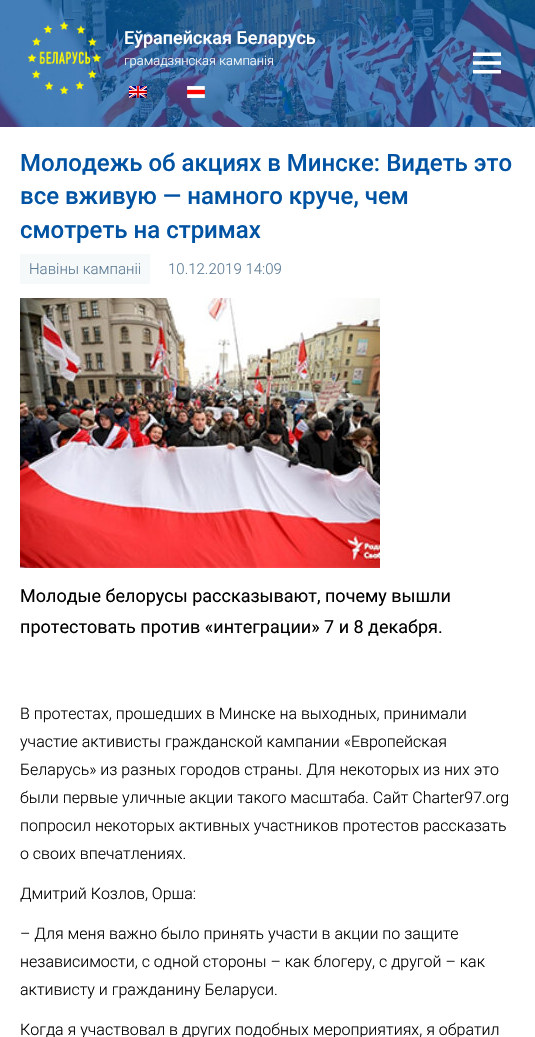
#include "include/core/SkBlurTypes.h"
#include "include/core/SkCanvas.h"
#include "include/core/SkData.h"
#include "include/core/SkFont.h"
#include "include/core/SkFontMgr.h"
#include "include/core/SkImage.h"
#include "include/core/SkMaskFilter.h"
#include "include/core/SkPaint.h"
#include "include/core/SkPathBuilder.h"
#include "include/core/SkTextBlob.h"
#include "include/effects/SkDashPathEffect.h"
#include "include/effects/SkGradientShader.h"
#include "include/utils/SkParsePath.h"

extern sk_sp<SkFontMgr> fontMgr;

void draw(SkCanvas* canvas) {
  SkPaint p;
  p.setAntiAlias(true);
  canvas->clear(SK_ColorWHITE);
  canvas->drawImageRect(SkImages::DeferredFromEncodedData(SkData::MakeFromFileName("images/1.png")), SkRect::MakeLTRB(0, 0, 535, 127), SkSamplingOptions());
  canvas->drawImageRect(SkImages::DeferredFromEncodedData(SkData::MakeFromFileName("images/2.png")), SkRect::MakeLTRB(27, 21, 101, 95), SkSamplingOptions());
  canvas->drawImageRect(SkImages::DeferredFromEncodedData(SkData::MakeFromFileName("images/3.png")), SkRect::MakeLTRB(129, 86, 147, 98), SkSamplingOptions());
  canvas->drawImageRect(SkImages::DeferredFromEncodedData(SkData::MakeFromFileName("images/4.png")), SkRect::MakeLTRB(187, 86, 205, 98), SkSamplingOptions());
  canvas->drawImageRect(SkImages::DeferredFromEncodedData(SkData::MakeFromFileName("images/5.png")), SkRect::MakeLTRB(473, 52, 501, 74), SkSamplingOptions());
  p.setColor(SkColorSetRGB(246, 249, 250));
  canvas->drawRect(SkRect::MakeLTRB(20, 254, 150, 284), p);
  canvas->drawImageRect(SkImages::DeferredFromEncodedData(SkData::MakeFromFileName("images/6.png")), SkRect::MakeLTRB(20, 298, 380, 568), SkSamplingOptions());
  SkFont font1(fontMgr->matchFamilyStyle("Roboto", SkFontStyle(500, SkFontStyle::kNormal_Width, SkFontStyle::kUpright_Slant)), 18);
  font1.setSubpixel(true);
  p.setColor(SK_ColorWHITE);
  canvas->drawString("Еўрапейская Беларусь", 124, 44, font1, p);
  SkFont font2(fontMgr->matchFamilyStyle("Roboto", SkFontStyle(300, SkFontStyle::kNormal_Width, SkFontStyle::kUpright_Slant)), 13);
  font2.setSubpixel(true);
  canvas->drawString("грамадзянская кампанія", 124, 65, font2, p);
  SkFont font3(fontMgr->matchFamilyStyle("Roboto", SkFontStyle(500, SkFontStyle::kNormal_Width, SkFontStyle::kUpright_Slant)), 24);
  font3.setSubpixel(true);
  p.setColor(SkColorSetRGB(0, 83, 162));
  canvas->drawString("Молодежь об акциях в Минске: Видеть это", 20, 171, font3, p);
  canvas->drawString("все вживую — намного круче, чем", 20, 204, font3, p);
  canvas->drawString("смотреть на стримах", 20, 238, font3, p);
  SkFont font4(fontMgr->matchFamilyStyle("Roboto", SkFontStyle(300, SkFontStyle::kNormal_Width, SkFontStyle::kUpright_Slant)), 15);
  font4.setSubpixel(true);
  p.setColor(SkColorSetRGB(93, 123, 148));
  canvas->drawString("Навіны кампаніі", 29, 274, font4, p);
  canvas->drawString("10.12.2019 14:09", 168, 274, font4, p);
  SkFont font5(fontMgr->matchFamilyStyle("Roboto", SkFontStyle::Normal()), 18);
  font5.setSubpixel(true);
  p.setColor(SK_ColorBLACK);
  canvas->drawString("Молодые белорусы рассказывают, почему вышли", 20, 602, font5, p);
  canvas->drawString("протестовать против «интеграции» 7 и 8 декабря.", 20, 633, font5, p);
  SkFont font6(fontMgr->matchFamilyStyle("Roboto", SkFontStyle(300, SkFontStyle::kNormal_Width, SkFontStyle::kUpright_Slant)), 16);
  font6.setSubpixel(true);
  canvas->drawString("В протестах, прошедших в Минске на выходных, принимали", 20, 719, font6, p);
  canvas->drawString("участие активисты гражданской кампании «Европейская", 20, 747, font6, p);
  canvas->drawString("Беларусь» из разных городов страны. Для некоторых из них это", 20, 775, font6, p);
  canvas->drawString("были первые уличные акции такого масштаба. Сайт Charter97.org", 20, 803, font6, p);
  canvas->drawString("попросил некоторых активных участников протестов рассказать", 20, 831, font6, p);
  canvas->drawString("о своих впечатлениях.", 20, 859, font6, p);
  canvas->drawString("Дмитрий Козлов, Орша:", 20, 899, font6, p);
  canvas->drawString("– Для меня важно было принять участи в акции по защите", 20, 939, font6, p);
  canvas->drawString("независимости, с одной стороны – как блогеру, с другой – как", 20, 967, font6, p);
  canvas->drawString("активисту и гражданину Беларуси.", 20, 995, font6, p);
  canvas->drawString("Когда я участвовал в других подобных мероприятиях, я обратил", 20, 1035, font6, p);
}
